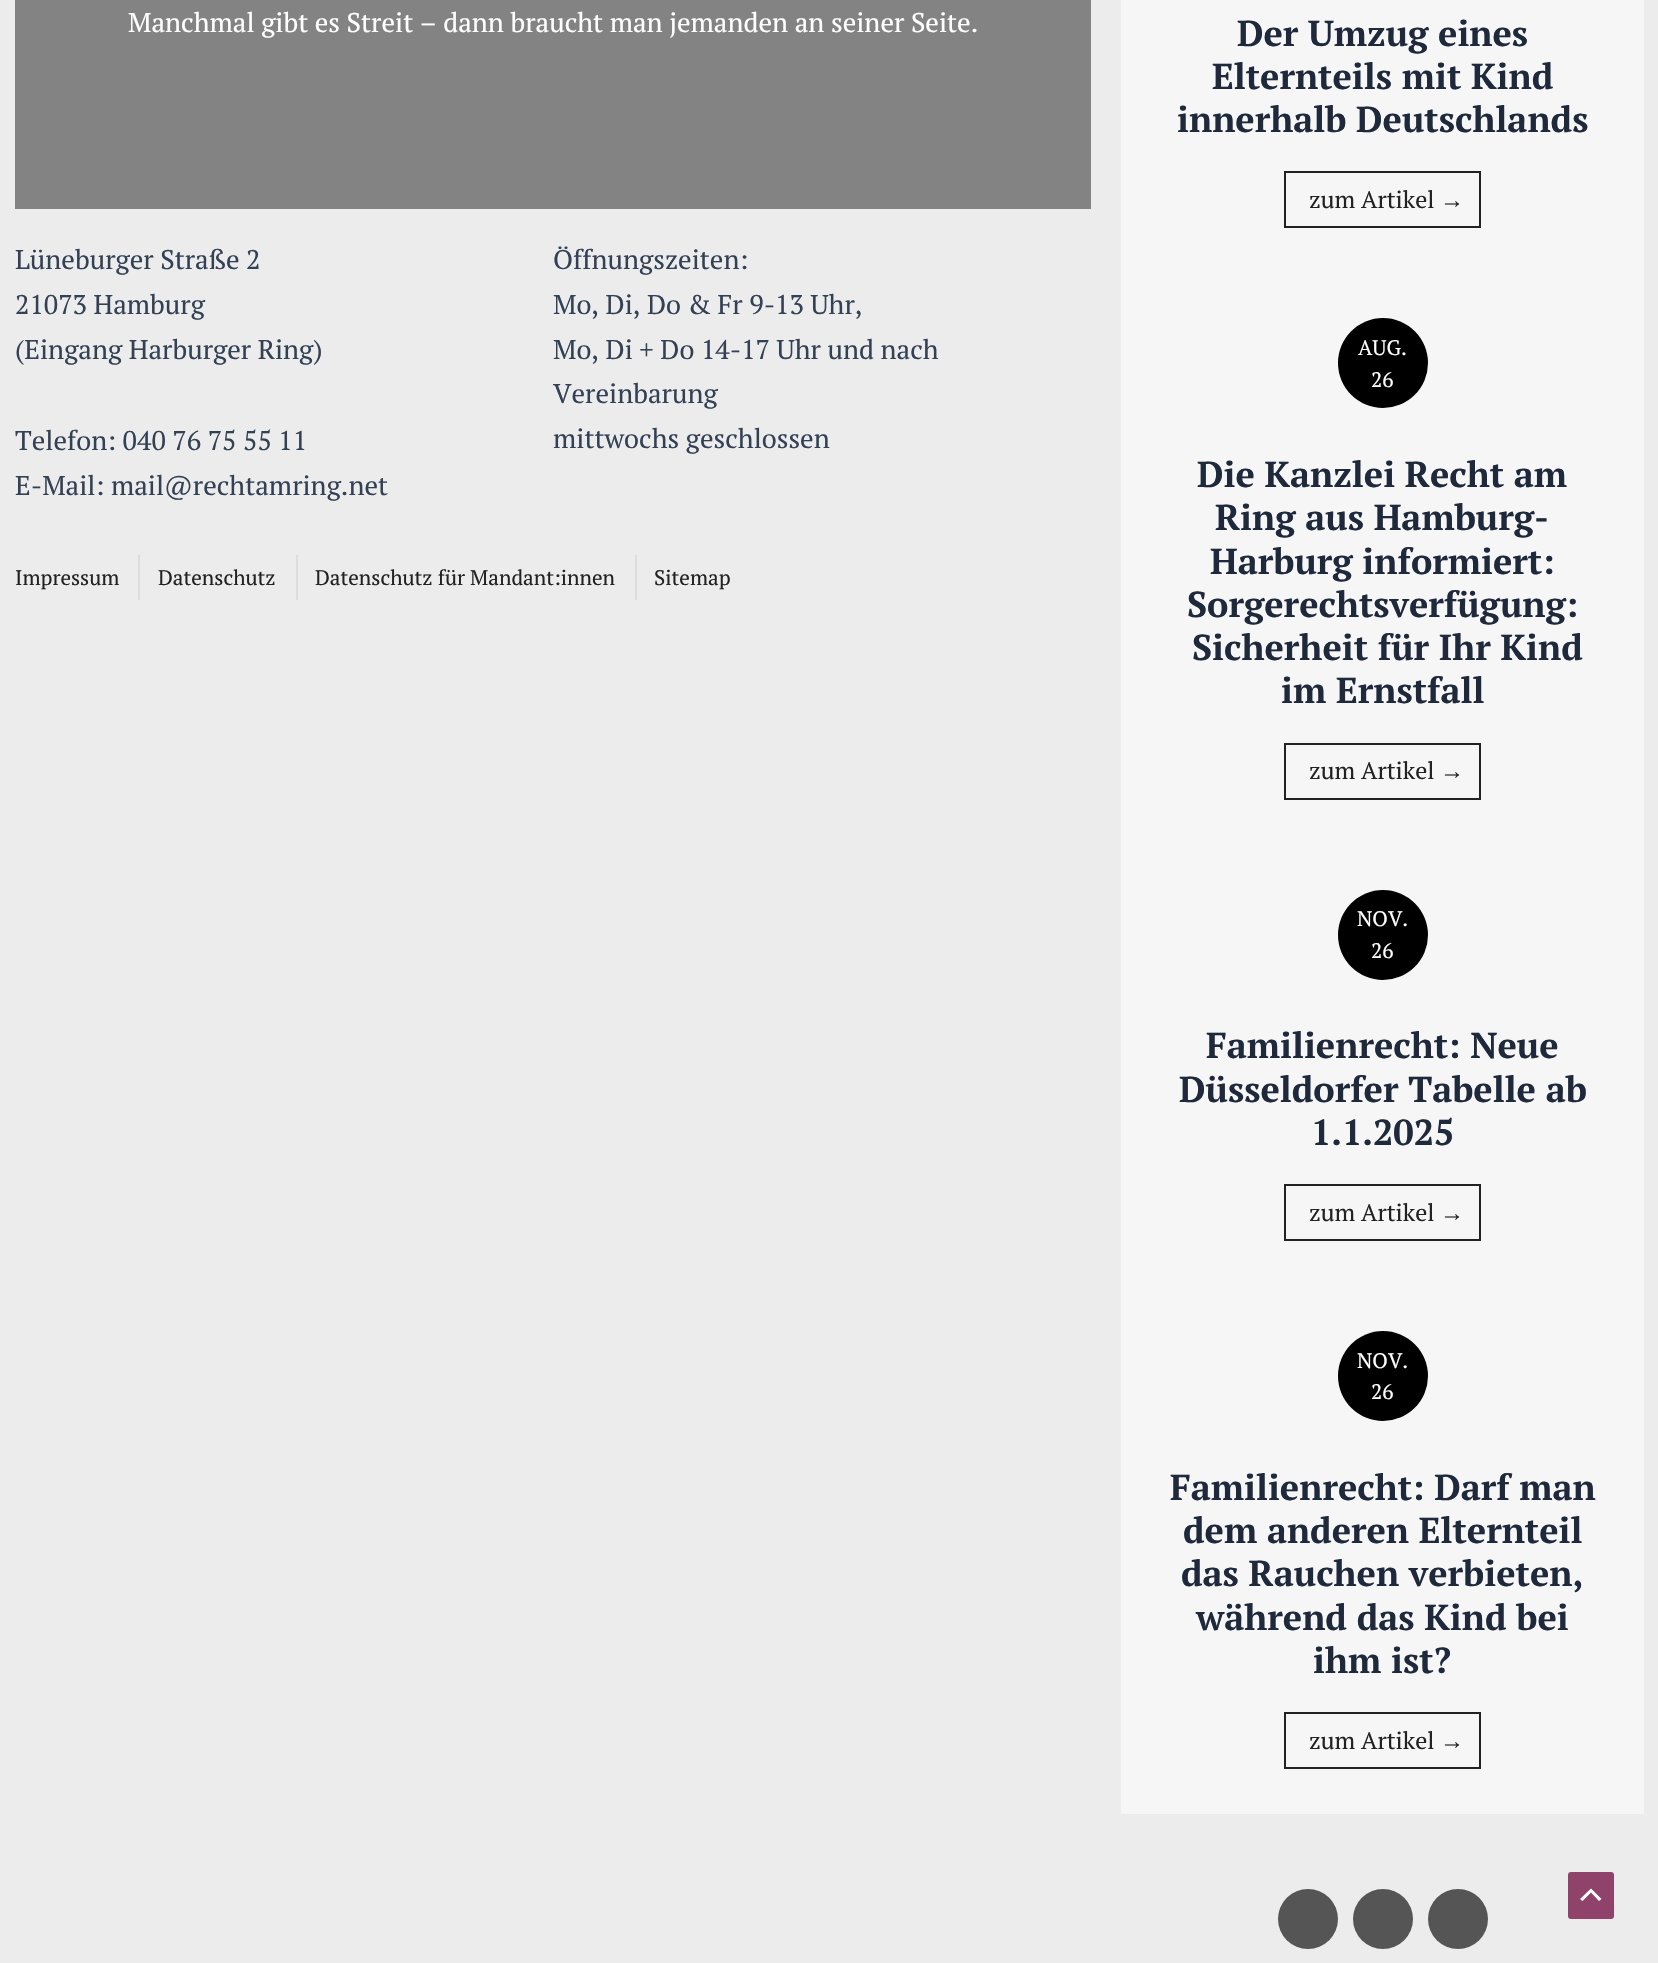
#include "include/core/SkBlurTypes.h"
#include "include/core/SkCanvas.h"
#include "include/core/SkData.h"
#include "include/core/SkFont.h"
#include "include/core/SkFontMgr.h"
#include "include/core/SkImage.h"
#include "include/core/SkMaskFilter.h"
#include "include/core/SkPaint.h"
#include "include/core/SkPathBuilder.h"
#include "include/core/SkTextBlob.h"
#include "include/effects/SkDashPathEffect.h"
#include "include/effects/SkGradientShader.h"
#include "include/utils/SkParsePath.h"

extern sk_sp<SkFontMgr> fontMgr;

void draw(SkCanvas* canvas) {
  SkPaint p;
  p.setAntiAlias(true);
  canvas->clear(SkColorSetRGB(236, 236, 236));
  p.setColor(SkColorSetRGB(131, 131, 131));
  canvas->drawRect(SkRect::MakeLTRB(15, 0, 1091, 209), p);
  p.setColor(SkColorSetRGB(221, 221, 221));
  canvas->drawRect(SkRect::MakeLTRB(138, 555, 140, 600), p);
  canvas->drawRect(SkRect::MakeLTRB(296, 555, 298, 600), p);
  canvas->drawRect(SkRect::MakeLTRB(635, 555, 637, 600), p);
  p.setColor(SkColorSetRGB(246, 246, 246));
  canvas->drawRect(SkRect::MakeLTRB(1121, 0, 1644, 1814), p);
  p.setStyle(SkPaint::kStroke_Style);
  p.setStrokeWidth(2);
  p.setColor(SkColorSetRGB(34, 34, 34));
  canvas->drawRect(SkRect::MakeLTRB(1285, 172, 1480, 227), p);
  p.setStyle(SkPaint::kFill_Style);
  p.setColor(SK_ColorBLACK);
  canvas->drawCircle(1383, 363, 45, p);
  p.setStyle(SkPaint::kStroke_Style);
  p.setColor(SkColorSetRGB(34, 34, 34));
  canvas->drawRect(SkRect::MakeLTRB(1285, 744, 1480, 799), p);
  p.setStyle(SkPaint::kFill_Style);
  p.setColor(SK_ColorBLACK);
  canvas->drawCircle(1383, 935, 45, p);
  p.setStyle(SkPaint::kStroke_Style);
  p.setColor(SkColorSetRGB(34, 34, 34));
  canvas->drawRect(SkRect::MakeLTRB(1285, 1185, 1480, 1240), p);
  p.setStyle(SkPaint::kFill_Style);
  p.setColor(SK_ColorBLACK);
  canvas->drawCircle(1383, 1376, 45, p);
  p.setStyle(SkPaint::kStroke_Style);
  p.setColor(SkColorSetRGB(34, 34, 34));
  canvas->drawRect(SkRect::MakeLTRB(1285, 1713, 1480, 1768), p);
  p.setStyle(SkPaint::kFill_Style);
  p.setColor(SkColorSetRGB(85, 85, 85));
  canvas->drawCircle(1308, 1919, 30, p);
  canvas->drawCircle(1383, 1919, 30, p);
  canvas->drawCircle(1458, 1919, 30, p);
  p.setColor(SkColorSetRGB(144, 67, 106));
  canvas->drawRoundRect(SkRect::MakeLTRB(1568, 1872, 1614, 1919), 3, 3, p);
  p.setColor(SK_ColorWHITE);
  canvas->drawPath(SkPathBuilder().moveTo(1601.5f, 1899).lineTo(1591, 1888.5f).lineTo(1580, 1899).lineTo(1582.5f, 1901).lineTo(1591, 1892.5f).lineTo(1599, 1901).close().detach(), p);
  SkFont font1(fontMgr->matchFamilyStyle("PT Serif", SkFontStyle::Normal()), 27);
  font1.setSubpixel(true);
  canvas->drawString("Manchmal gibt es Streit – dann braucht man jemanden an seiner Seite.", 128, 32, font1, p);
  p.setColor(SkColorSetRGB(51, 65, 85));
  canvas->drawString("Lüneburger Straße 2", 15, 269, font1, p);
  canvas->drawString("21073 Hamburg", 15, 314, font1, p);
  canvas->drawString("(Eingang Harburger Ring)", 15, 359, font1, p);
  canvas->drawString("Telefon: 040 76 75 55 11", 15, 450, font1, p);
  canvas->drawString("E-Mail: mail@rechtamring.net", 15, 495, font1, p);
  canvas->drawString("Öffnungszeiten:", 553, 269, font1, p);
  canvas->drawString("Mo, Di, Do & Fr 9-13 Uhr,", 553, 314, font1, p);
  canvas->drawString("Mo, Di + Do 14-17 Uhr und nach", 553, 359, font1, p);
  canvas->drawString("Vereinbarung", 553, 403, font1, p);
  canvas->drawString("mittwochs geschlossen", 553, 448, font1, p);
  SkFont font2(fontMgr->matchFamilyStyle("PT Serif", SkFontStyle::Normal()), 21);
  font2.setSubpixel(true);
  p.setColor(SkColorSetRGB(34, 34, 34));
  canvas->drawString("Impressum", 15, 585, font2, p);
  canvas->drawString("Datenschutz", 158, 585, font2, p);
  canvas->drawString("Datenschutz für Mandant:innen", 315, 585, font2, p);
  canvas->drawString("Sitemap", 654, 585, font2, p);
  SkFont font3(fontMgr->matchFamilyStyle("PT Serif", SkFontStyle::Bold()), 36);
  font3.setSubpixel(true);
  p.setColor(SkColorSetRGB(30, 41, 59));
  canvas->drawString("Der Umzug eines", 1237, 46, font3, p);
  canvas->drawString("Elternteils mit Kind", 1212, 89, font3, p);
  canvas->drawString("innerhalb Deutschlands", 1177, 132, font3, p);
  SkFont font4(fontMgr->matchFamilyStyle("PT Serif", SkFontStyle::Normal()), 24);
  font4.setSubpixel(true);
  p.setColor(SkColorSetRGB(34, 34, 34));
  canvas->drawString("zum Artikel", 1309, 208, font4, p);
  SkFont font5(fontMgr->matchFamilyStyle("Liberation Sans", SkFontStyle::Normal()), 24);
  font5.setSubpixel(true);
  canvas->drawString("→", 1440, 208, font5, p);
  p.setColor(SK_ColorWHITE);
  canvas->drawString("AUG.", 1358, 355, font2, p);
  canvas->drawString("26", 1371, 387, font2, p);
  p.setColor(SkColorSetRGB(30, 41, 59));
  canvas->drawString("Die Kanzlei Recht am", 1197, 487, font3, p);
  canvas->drawString("Ring aus Hamburg-", 1215, 530, font3, p);
  canvas->drawString("Harburg informiert:", 1210, 574, font3, p);
  canvas->drawString("Sorgerechtsverfügung:", 1187, 617, font3, p);
  canvas->drawString("Sicherheit für Ihr Kind", 1192, 660, font3, p);
  canvas->drawString("im Ernstfall", 1281, 703, font3, p);
  p.setColor(SkColorSetRGB(34, 34, 34));
  canvas->drawString("zum Artikel", 1309, 779, font4, p);
  canvas->drawString("→", 1440, 779, font5, p);
  p.setColor(SK_ColorWHITE);
  canvas->drawString("NOV.", 1357, 926, font2, p);
  canvas->drawString("26", 1371, 958, font2, p);
  p.setColor(SkColorSetRGB(30, 41, 59));
  canvas->drawString("Familienrecht: Neue", 1206, 1058, font3, p);
  canvas->drawString("Düsseldorfer Tabelle ab", 1179, 1102, font3, p);
  canvas->drawString("1.1.2025", 1311, 1145, font3, p);
  p.setColor(SkColorSetRGB(34, 34, 34));
  canvas->drawString("zum Artikel", 1309, 1221, font4, p);
  canvas->drawString("→", 1440, 1221, font5, p);
  p.setColor(SK_ColorWHITE);
  canvas->drawString("NOV.", 1357, 1368, font2, p);
  canvas->drawString("26", 1371, 1399, font2, p);
  p.setColor(SkColorSetRGB(30, 41, 59));
  canvas->drawString("Familienrecht: Darf man", 1170, 1500, font3, p);
  canvas->drawString("dem anderen Elternteil", 1183, 1543, font3, p);
  canvas->drawString("das Rauchen verbieten,", 1181, 1586, font3, p);
  canvas->drawString("während das Kind bei", 1196, 1630, font3, p);
  canvas->drawString("ihm ist?", 1313, 1673, font3, p);
  p.setColor(SkColorSetRGB(34, 34, 34));
  canvas->drawString("zum Artikel", 1309, 1749, font4, p);
  canvas->drawString("→", 1440, 1749, font5, p);
}
